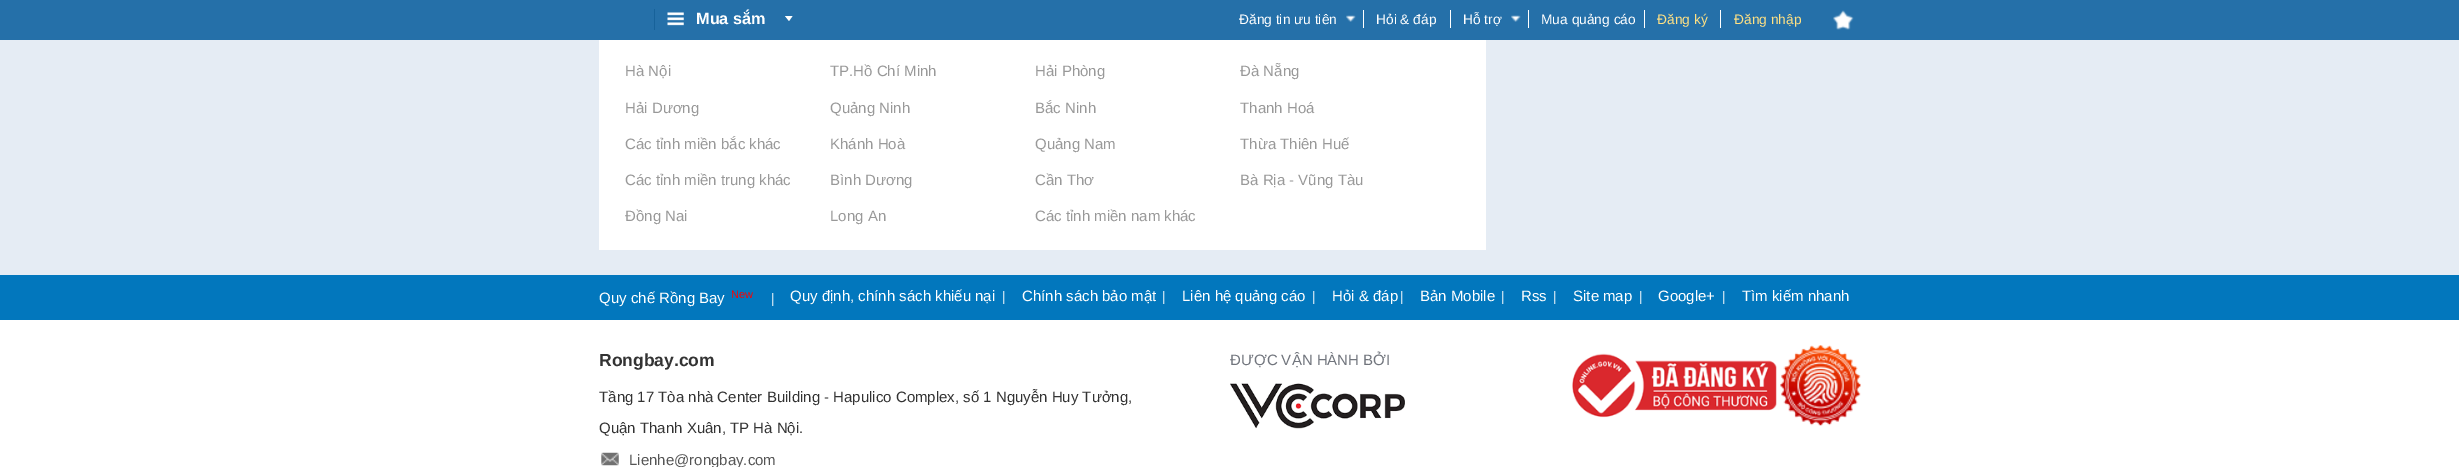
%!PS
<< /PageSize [2459 467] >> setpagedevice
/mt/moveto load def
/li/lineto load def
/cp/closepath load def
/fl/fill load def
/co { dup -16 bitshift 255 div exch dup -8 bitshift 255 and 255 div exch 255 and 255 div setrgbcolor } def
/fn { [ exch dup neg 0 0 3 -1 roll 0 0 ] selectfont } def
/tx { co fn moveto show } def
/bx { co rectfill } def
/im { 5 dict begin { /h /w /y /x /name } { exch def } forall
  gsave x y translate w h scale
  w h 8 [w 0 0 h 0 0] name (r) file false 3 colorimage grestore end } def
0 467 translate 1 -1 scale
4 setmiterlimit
0 0 2459 467 16#E5ECF4 bx
0 0 2459 40 16#2570A9 bx
654 9 1 21 16#17629A bx
(media/1.raw) 667 12 17 14 im
16#FFFFFF co
785 16 mt 792.5 16 li 789 21 li cp fl
(media/2.raw) 1346 15 10 7 im
1363 10 1 18 16#FFFFFF bx
1450 10 1 18 16#FFFFFF bx
(media/2.raw) 1511 15 10 7 im
1528 10 1 18 16#FFFFFF bx
1644 10 1 18 16#FFFFFF bx
1720 10 1 18 16#FFFFFF bx
(media/3.raw) 1833 10 21 20 im
599 40 887 210 16#FFFFFF bx
0 275 2459 45 16#0277BD bx
0 320 2459 147 16#FFFFFF bx
(media/4.raw) 601 452 18 14 im
(media/5.raw) 1230 383 175 46 im
(media/6.raw) 1572 353 205 65 im
(media/7.raw) 1780 345 81 81 im
(Mua sắm) 696 24 /LiberationSans-Bold 16.25 16#FFFFFF tx
(Đăng tin ưu tiên) 1239 24 /LiberationSans-Regular 13.75 16#FFFFFF tx
(Hỏi & đáp) 1376 24 /LiberationSans-Regular 13.75 16#FFFFFF tx
(Hỗ trợ) 1463 24 /LiberationSans-Regular 13.75 16#FFFFFF tx
(Mua quảng cáo) 1541 24 /LiberationSans-Regular 13.75 16#FFFFFF tx
(Đăng ký) 1657 24 /LiberationSans-Regular 13.75 16#FFE184 tx
(Đăng nhập) 1734 24 /LiberationSans-Regular 13.75 16#FFE184 tx
(Hà Nội) 625 76 /LiberationSans-Regular 15 16#999999 tx
(TP.Hồ Chí Minh) 830 76 /LiberationSans-Regular 15 16#999999 tx
(Hải Phòng) 1035 76 /LiberationSans-Regular 15 16#999999 tx
(Đà Nẵng) 1240 76 /LiberationSans-Regular 15 16#999999 tx
(Hải Dương) 625 113 /LiberationSans-Regular 15 16#999999 tx
(Quảng Ninh) 830 113 /LiberationSans-Regular 15 16#999999 tx
(Bắc Ninh) 1035 113 /LiberationSans-Regular 15 16#999999 tx
(Thanh Hoá) 1240 113 /LiberationSans-Regular 15 16#999999 tx
(Các tỉnh miền bắc khác) 625 149 /LiberationSans-Regular 15 16#999999 tx
(Khánh Hoà) 830 149 /LiberationSans-Regular 15 16#999999 tx
(Quảng Nam) 1035 149 /LiberationSans-Regular 15 16#999999 tx
(Thừa Thiên Huế) 1240 149 /LiberationSans-Regular 15 16#999999 tx
(Các tỉnh miền trung khác) 625 185 /LiberationSans-Regular 15 16#999999 tx
(Bình Dương) 830 185 /LiberationSans-Regular 15 16#999999 tx
(Cần Thơ) 1035 185 /LiberationSans-Regular 15 16#999999 tx
(Bà Rịa - Vũng Tàu) 1240 185 /LiberationSans-Regular 15 16#999999 tx
(Đồng Nai) 625 221 /LiberationSans-Regular 15 16#999999 tx
(Long An) 830 221 /LiberationSans-Regular 15 16#999999 tx
(Các tỉnh miền nam khác) 1035 221 /LiberationSans-Regular 15 16#999999 tx
(Quy chế Rồng Bay) 599 303 /LiberationSans-Regular 15 16#FFFFFF tx
(New) 731 298 /LiberationSans-Regular 11 16#FF0000 tx
(|) 771 303 /LiberationSans-Regular 13.75 16#FFFFFF tx
(Quy định, chính sách khiếu nại) 790 301 /LiberationSans-Regular 15 16#FFFFFF tx
(|) 1002 301 /LiberationSans-Regular 13.75 16#FFFFFF tx
(Chính sách bảo mật) 1022 301 /LiberationSans-Regular 15 16#FFFFFF tx
(|) 1162 301 /LiberationSans-Regular 13.75 16#FFFFFF tx
(Liên hệ quảng cáo) 1182 301 /LiberationSans-Regular 15 16#FFFFFF tx
(|) 1312 301 /LiberationSans-Regular 13.75 16#FFFFFF tx
(Hỏi & đáp) 1332 301 /LiberationSans-Regular 15 16#FFFFFF tx
(|) 1400 301 /LiberationSans-Regular 13.75 16#FFFFFF tx
(Bản Mobile) 1420 301 /LiberationSans-Regular 15 16#FFFFFF tx
(|) 1501 301 /LiberationSans-Regular 13.75 16#FFFFFF tx
(Rss) 1521 301 /LiberationSans-Regular 15 16#FFFFFF tx
(|) 1553 301 /LiberationSans-Regular 13.75 16#FFFFFF tx
(Site map) 1573 301 /LiberationSans-Regular 15 16#FFFFFF tx
(|) 1639 301 /LiberationSans-Regular 13.75 16#FFFFFF tx
(Google+) 1658 301 /LiberationSans-Regular 15 16#FFFFFF tx
(|) 1722 301 /LiberationSans-Regular 13.75 16#FFFFFF tx
(Tìm kiếm nhanh) 1742 301 /LiberationSans-Regular 15 16#FFFFFF tx
(Rongbay.com) 599 366 /LiberationSans-Bold 17.5 16#333333 tx
(Tầng 17 Tòa nhà Center Building - Hapulico Complex, số 1 Nguyễn Huy Tưởng,) 599 402 /LiberationSans-Regular 15 16#333333 tx
(Quận Thanh Xuân, TP Hà Nội.) 599 433 /LiberationSans-Regular 15 16#333333 tx
(Lienhe@rongbay.com) 629 465 /LiberationSans-Regular 15 16#555555 tx
(ĐƯỢC VẬN HÀNH BỞI) 1230 365 /LiberationSans-Regular 15 16#71757D tx
showpage
